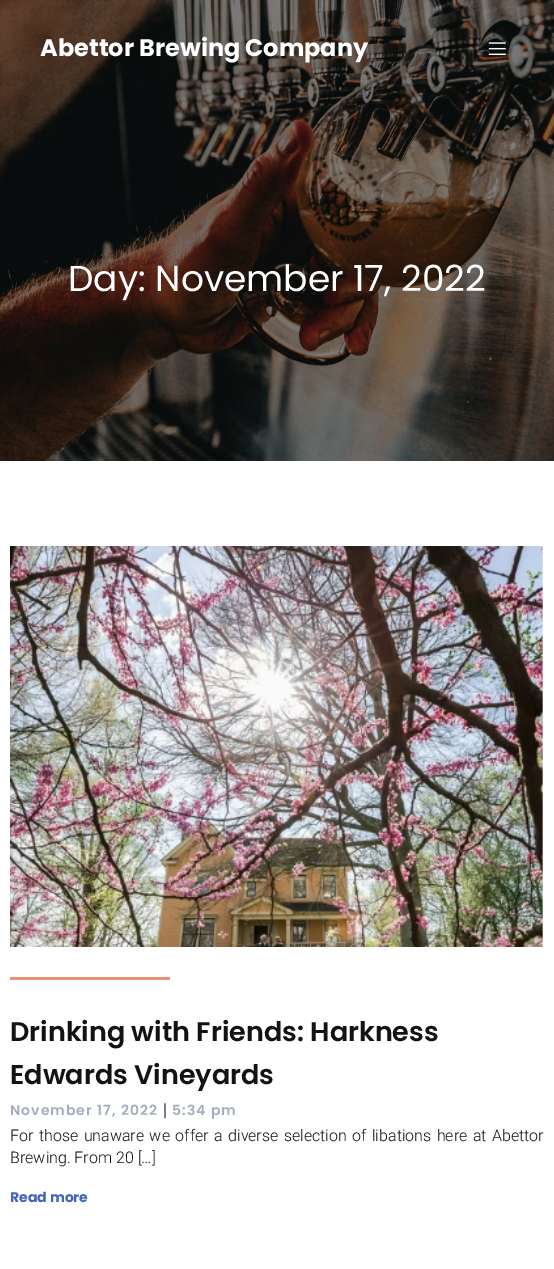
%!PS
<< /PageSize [554 1269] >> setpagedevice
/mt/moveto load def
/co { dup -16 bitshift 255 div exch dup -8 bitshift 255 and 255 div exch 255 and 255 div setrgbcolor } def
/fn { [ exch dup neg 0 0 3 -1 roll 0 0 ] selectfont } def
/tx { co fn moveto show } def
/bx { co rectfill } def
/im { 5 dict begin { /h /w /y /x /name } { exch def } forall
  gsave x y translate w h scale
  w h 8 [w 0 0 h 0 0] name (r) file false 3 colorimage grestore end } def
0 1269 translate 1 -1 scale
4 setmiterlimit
0 0 554 1269 16#FFFFFF bx
(media/2.raw) 0 0 554 461 im
(media/1.raw) 488 42 18 13 im
(media/3.raw) 10 546 534 401 im
10 977 160 3 16#EA9374 bx
(Abettor Brewing Company) 40 56 /Poppins-Bold 24 16#FFFFFF tx
(Day: November 17, 2022) 68 291 /Poppins-Regular 36 16#FFFFFF tx
(Drinking with Friends: Harkness) 10 1041 /Poppins-SemiBold 27 16#121315 tx
(Edwards Vineyards) 10 1084 /Poppins-SemiBold 27 16#121315 tx
/Poppins-SemiBold 14 fn
16#A3ACBE co
10 1115 mt 1 0 (November 17, 2022) ashow
(|) 163 1116 /Roboto-Light 18 16#0A0E14 tx
/Poppins-SemiBold 14 fn
16#A3ACBE co
172 1115 mt 1 0 (5:34 pm) ashow
/Roboto-Light 16 fn
16#0A0E14 co
10 1141 mt 1.6 0 32 (For those unaware we offer a diverse selection of libations here at Abettor) widthshow
(Brewing. From 20 […]) 10 1163 /Roboto-Light 16 16#0A0E14 tx
(Read more) 10 1202 /Poppins-Bold 14 16#4263BE tx
showpage
